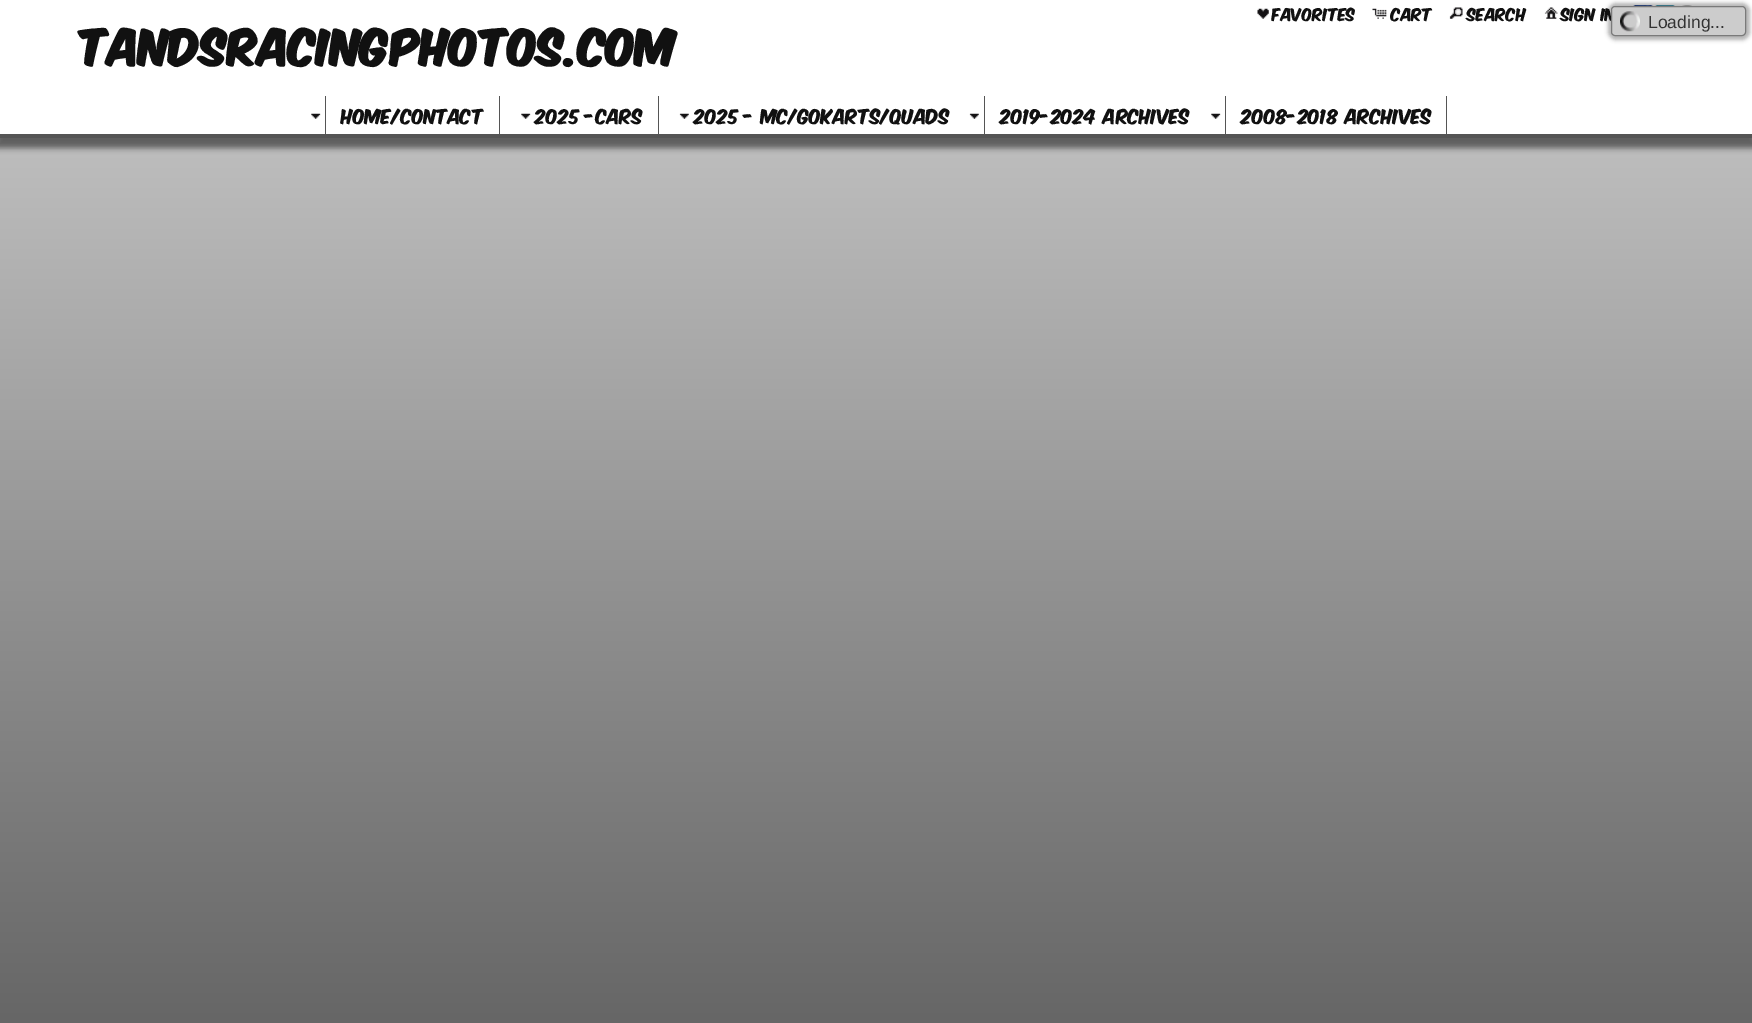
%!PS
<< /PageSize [1752 1023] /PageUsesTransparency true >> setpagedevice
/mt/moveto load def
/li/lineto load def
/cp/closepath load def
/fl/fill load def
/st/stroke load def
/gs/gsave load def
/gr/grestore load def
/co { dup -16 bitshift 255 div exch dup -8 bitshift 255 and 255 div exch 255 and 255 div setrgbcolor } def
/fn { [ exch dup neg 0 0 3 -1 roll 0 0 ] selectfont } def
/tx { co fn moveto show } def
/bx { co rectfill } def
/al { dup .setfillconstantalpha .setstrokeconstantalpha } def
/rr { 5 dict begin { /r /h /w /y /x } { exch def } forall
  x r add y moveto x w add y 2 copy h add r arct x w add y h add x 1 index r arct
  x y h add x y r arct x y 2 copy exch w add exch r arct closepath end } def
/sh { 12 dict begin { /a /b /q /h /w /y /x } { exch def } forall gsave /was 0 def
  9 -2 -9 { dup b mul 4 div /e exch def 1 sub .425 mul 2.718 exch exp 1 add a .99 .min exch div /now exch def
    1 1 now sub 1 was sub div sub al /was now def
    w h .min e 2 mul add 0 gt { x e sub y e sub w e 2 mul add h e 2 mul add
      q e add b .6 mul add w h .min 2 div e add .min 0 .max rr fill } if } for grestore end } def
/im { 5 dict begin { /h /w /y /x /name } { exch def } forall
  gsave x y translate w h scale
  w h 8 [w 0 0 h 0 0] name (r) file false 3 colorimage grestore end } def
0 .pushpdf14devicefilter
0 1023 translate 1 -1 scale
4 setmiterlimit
0 0 1752 1023 16#FFFFFF bx
gs 0 138 mt 1752 138 li 1752 1023 li 0 1023 li cp clip newpath
<< /ShadingType 2 /ColorSpace /DeviceRGB /Coords [876 0 876 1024] /Extend [true true] /Function << /FunctionType 2 /Domain [0 1] /C0 [.8 .8 .8] /C1 [.4 .4 .4] /N 1 >> >> shfill gr
16#000000 co
-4 3 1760 145 0 3 .5 sh
0 0 1752 134 16#FFFFFF bx
0 134 1752 4 16#555555 bx
(media/1.raw) 1633 5 59 1 im
(media/2.raw) 1257 8 12 11 im
(media/3.raw) 1372 8 15 11 im
(media/4.raw) 1449 7 14 12 im
(media/5.raw) 1544 7 14 12 im
1446 96 1 38 16#555555 bx
(media/6.raw) 311 113 10 6 im
325 96 1 38 16#555555 bx
499 96 1 38 16#555555 bx
(media/6.raw) 521 113 10 6 im
658 96 1 38 16#555555 bx
(media/7.raw) 679 113 10 6 im
(media/7.raw) 969 113 10 6 im
984 96 1 38 16#555555 bx
(media/6.raw) 1211 113 10 6 im
1225 96 1 38 16#555555 bx
16#000000 co
1608 3 142 37 8 2 .3 sh
(Favorites) 1272 21 /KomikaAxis-Regular 15 16#111111 tx
(Cart) 1391 21 /KomikaAxis-Regular 15 16#111111 tx
(Search) 1467 21 /KomikaAxis-Regular 15 16#111111 tx
(Sign In) 1561 21 /KomikaAxis-Regular 15 16#111111 tx
/KomikaAxis-Bold 42.5 fn
79 66 mt .5 0 (TANDSRACINGPHOTOS.COM) ashow
(Home/Contact) 341 124 /KomikaAxis-Regular 17.5 16#111111 tx
(2025 -Cars) 535 124 /KomikaAxis-Regular 17.5 16#111111 tx
(2025 - MC/GoKarts/Quads) 694 124 /KomikaAxis-Regular 17.5 16#111111 tx
(2019-2024 Archives) 1000 124 /KomikaAxis-Regular 17.5 16#111111 tx
(2008-2018 Archives) 1241 124 /KomikaAxis-Regular 17.5 16#111111 tx
16#CCCCCC co
1611.5 6.5 134 29 3.5 rr gs fl gr
16#7A7A7A co
st
(media/8.raw) 1620 11 20 21 im
(Loading...) 1648 28 /LiberationSans-Regular 17.5 16#333333 tx
.poppdf14devicefilter showpage
